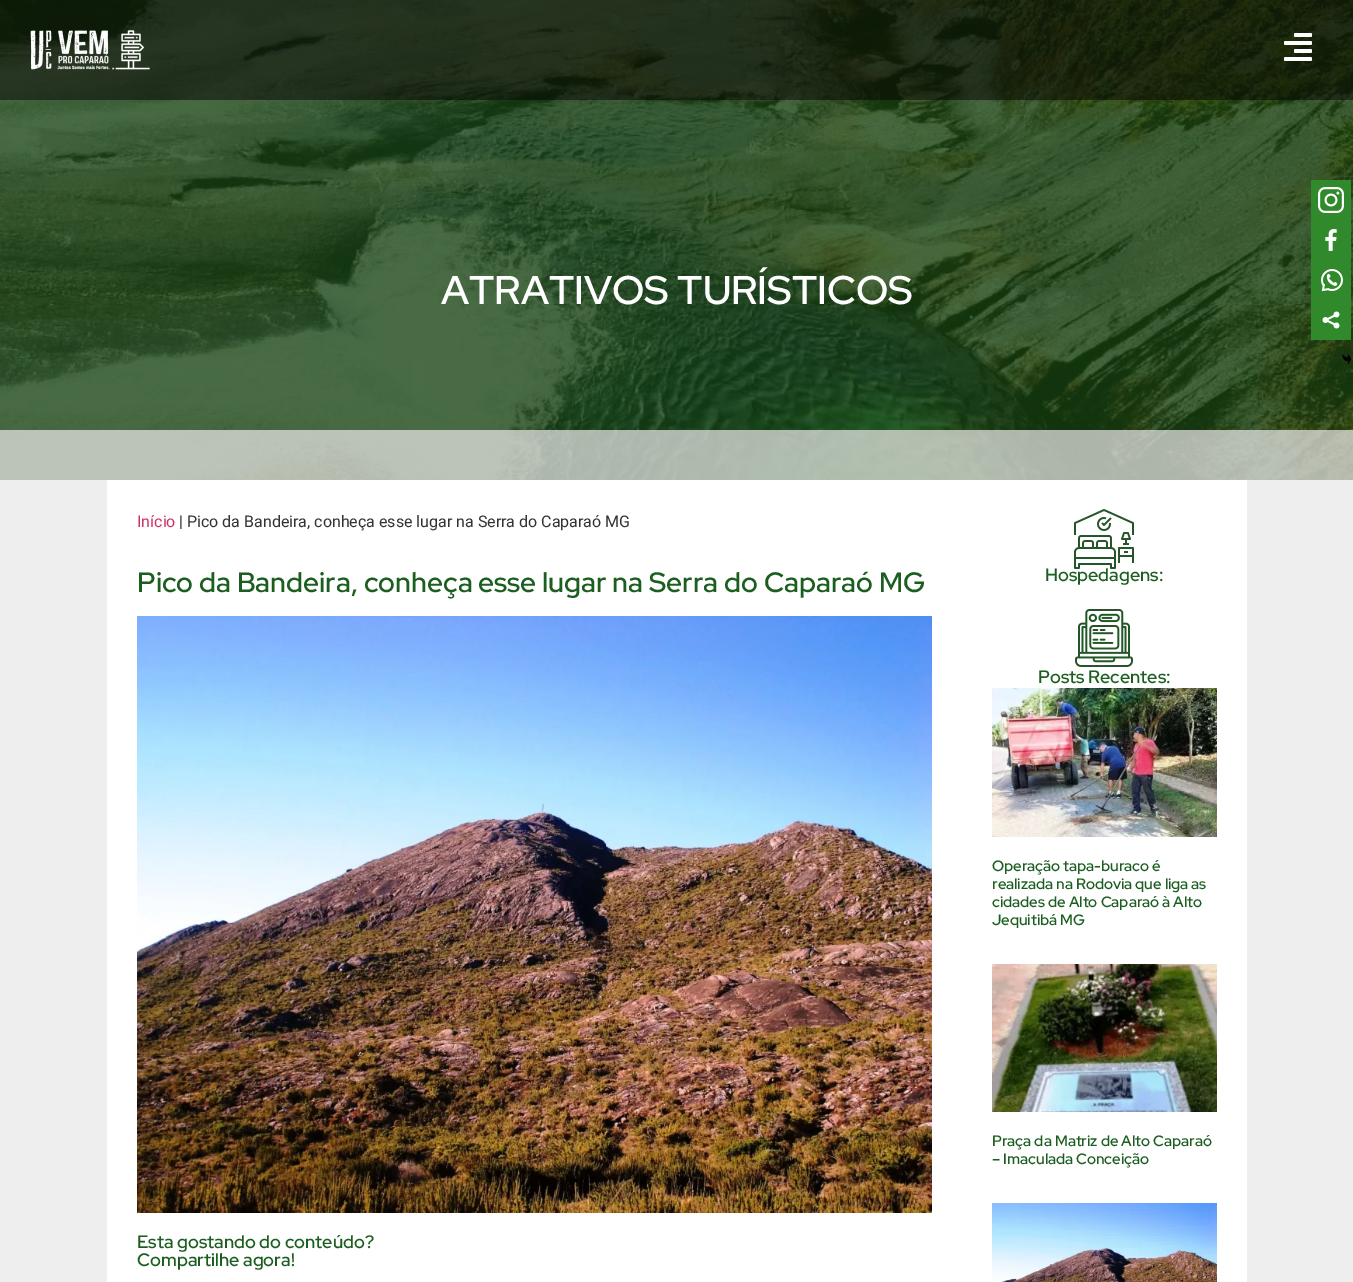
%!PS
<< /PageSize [1353 1282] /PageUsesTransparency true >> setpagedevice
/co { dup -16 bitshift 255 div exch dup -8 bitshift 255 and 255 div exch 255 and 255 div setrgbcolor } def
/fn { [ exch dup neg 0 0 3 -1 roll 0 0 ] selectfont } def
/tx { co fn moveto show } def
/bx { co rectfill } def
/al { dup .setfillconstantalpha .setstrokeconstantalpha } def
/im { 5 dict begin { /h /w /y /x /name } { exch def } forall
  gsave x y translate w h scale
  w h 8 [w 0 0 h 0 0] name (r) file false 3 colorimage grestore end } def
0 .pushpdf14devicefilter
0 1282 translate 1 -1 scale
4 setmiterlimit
0 0 1353 1282 16#FFFFFF bx
(media/3.raw) 0 0 1353 480 im
0.5 al
0 0 1353 100 16#060000 bx
1 al
(media/1.raw) 30 30 120 40 im
(media/2.raw) 1284 33 28 28 im
0.72 al
0 430 1353 852 16#E9E7E7 bx
1 al
107 480 1140 802 16#FFFFFF bx
1311 180 40 160 16#308A2B bx
(media/4.raw) 1318 187 26 26 im
(media/5.raw) 1325 229 12 22 im
(media/6.raw) 1321 269 22 23 im
(media/7.raw) 1322 311 18 18 im
(media/8.raw) 1342 353 10 12 im
(media/9.raw) 137 616 795 597 im
(media/10.raw) 1074 509 60 60 im
(media/11.raw) 1075 609 58 58 im
(media/12.raw) 992 688 225 149 im
(media/13.raw) 992 964 225 148 im
(media/14.raw) 992 1203 225 79 im
(ATRATIVOS TURÍSTICOS) 441 304 /RedHatDisplay-SemiBold 40 16#FFFFFF tx
(Início) 137 527 /Roboto-Regular 16 16#CC3366 tx
(| Pico da Bandeira, conheça esse lugar na Serra do Caparaó MG) 179 527 /Roboto-Regular 16 16#333333 tx
(Pico da Bandeira, conheça esse lugar na Serra do Caparaó MG) 137 592 /RedHatDisplay-SemiBold 28 16#1B5E20 tx
(Esta gostando do conteúdo?) 137 1248 /RedHatDisplay-SemiBold 18 16#1B5E20 tx
(Compartilhe agora!) 137 1266 /RedHatDisplay-SemiBold 18 16#1B5E20 tx
(Hospedagens:) 1045 581 /RedHatDisplay-SemiBold 18 16#1B5E20 tx
(Posts Recentes:) 1038 683 /RedHatDisplay-SemiBold 18 16#1B5E20 tx
(Operação tapa-buraco é) 992 871 /RedHatDisplay-SemiBold 15 16#1B5E20 tx
(realizada na Rodovia que liga as) 992 889 /RedHatDisplay-SemiBold 15 16#1B5E20 tx
(cidades de Alto Caparaó à Alto) 992 907 /RedHatDisplay-SemiBold 15 16#1B5E20 tx
(Jequitibá MG) 992 925 /RedHatDisplay-SemiBold 15 16#1B5E20 tx
(Praça da Matriz de Alto Caparaó) 992 1146 /RedHatDisplay-SemiBold 15 16#1B5E20 tx
(– Imaculada Conceição) 992 1164 /RedHatDisplay-SemiBold 15 16#1B5E20 tx
.poppdf14devicefilter showpage
